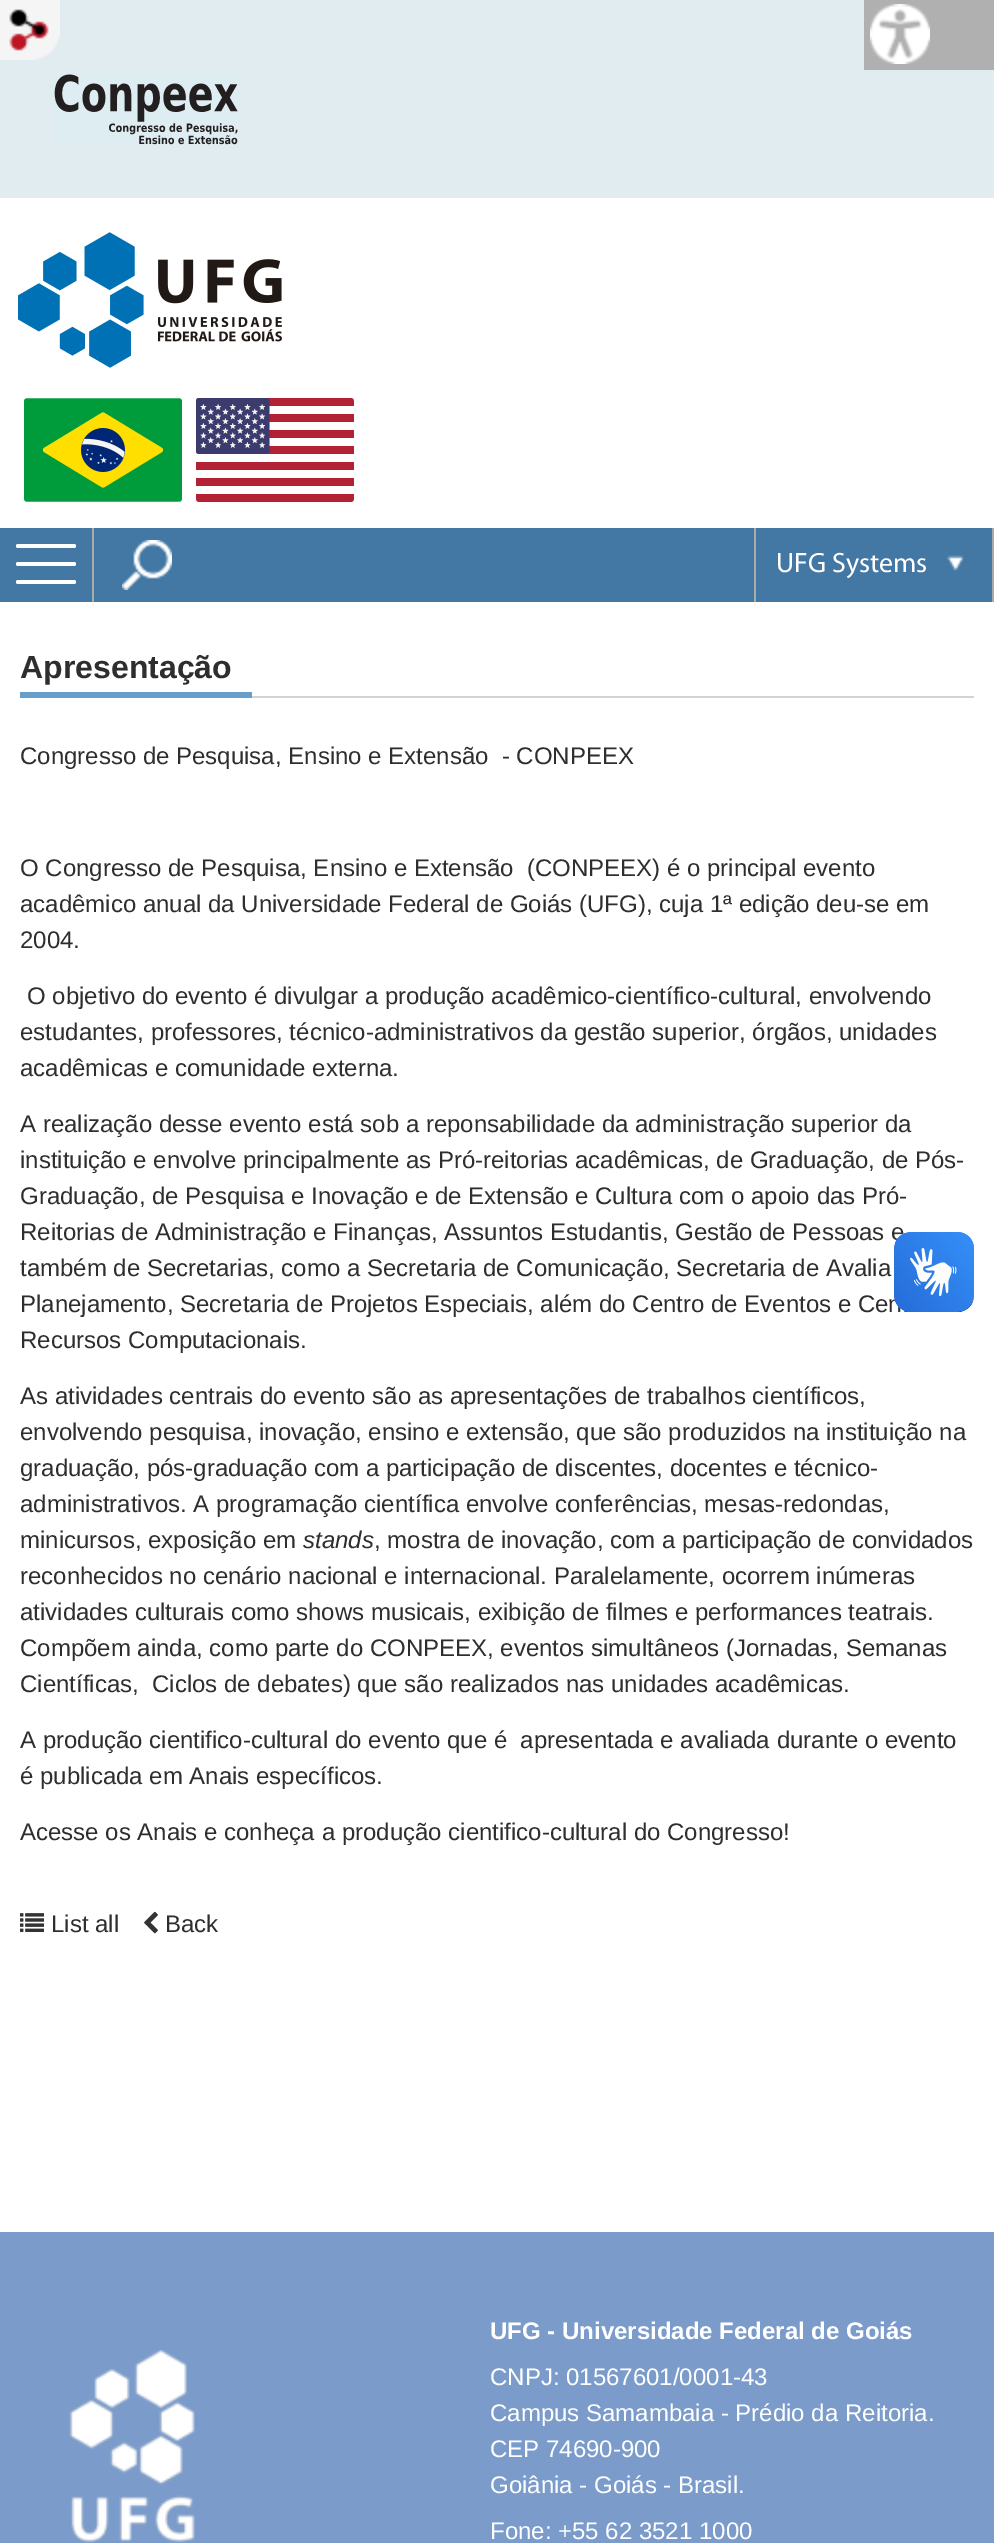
%!PS
<< /PageSize [994 2543] >> setpagedevice
/fl/fill load def
/co { dup -16 bitshift 255 div exch dup -8 bitshift 255 and 255 div exch 255 and 255 div setrgbcolor } def
/fn { [ exch dup neg 0 0 3 -1 roll 0 0 ] selectfont } def
/tx { co fn moveto show } def
/bx { co rectfill } def
/rr { 5 dict begin { /r /h /w /y /x } { exch def } forall
  x r add y moveto x w add y 2 copy h add r arct x w add y h add x 1 index r arct
  x y h add x y r arct x y 2 copy exch w add exch r arct closepath end } def
/im { 5 dict begin { /h /w /y /x /name } { exch def } forall
  gsave x y translate w h scale
  w h 8 [w 0 0 h 0 0] name (r) file false 3 colorimage grestore end } def
0 2543 translate 1 -1 scale
4 setmiterlimit
0 0 994 2543 16#FFFFFF bx
0 0 994 198 16#E1ECF1 bx
(media/1.raw) 0 0 60 60 im
(media/2.raw) 54 74 184 71 im
(media/3.raw) 18 232 264 136 im
(media/4.raw) 24 398 158 104 im
(media/5.raw) 196 398 158 104 im
864 0 130 70 16#B0B0B0 bx
(media/6.raw) 870 4 60 60 im
0 528 992 74 16#4478A4 bx
92 528 2 74 16#AAAAAA bx
16#FFFFFF co
16 562 60 4 2 rr fl
16 544 60 4 2 rr fl
16 580 60 4 2 rr fl
(media/7.raw) 122 540 50 50 im
(media/8.raw) 947 555 17 16 im
992 528 2 74 16#AAAAAA bx
754 528 2 74 16#AAAAAA bx
252 696 722 2 16#D3D3D3 bx
20 692 232 6 16#689ECA bx
(media/9.raw) 20 1913 24 19 im
(media/10.raw) 144 1911 14 23 im
0 2232 994 311 16#7B9CCB bx
(media/13.raw) 69 2349 126 194 im
(UFG Systems) 776 572 /Myriad-Regular 28 16#FFFFFF tx
(Apresentação) 20 678 /LiberationSans-Bold 32 16#2E2E2E tx
(Congresso de Pesquisa, Ensino e Extensão  - CONPEEX) 20 764 /LiberationSans-Regular 24 16#2E2E2E tx
(O Congresso de Pesquisa, Ensino e Extensão  \(CONPEEX\) é o principal evento) 20 876 /LiberationSans-Regular 24 16#2E2E2E tx
(acadêmico anual da Universidade Federal de Goiás \(UFG\), cuja 1ª edição deu-se em) 20 912 /LiberationSans-Regular 24 16#2E2E2E tx
(2004.) 20 948 /LiberationSans-Regular 24 16#2E2E2E tx
(O objetivo do evento é divulgar a produção acadêmico-científico-cultural, envolvendo) 27 1004 /LiberationSans-Regular 24 16#2E2E2E tx
(estudantes, professores, técnico-administrativos da gestão superior, órgãos, unidades) 20 1040 /LiberationSans-Regular 24 16#2E2E2E tx
(acadêmicas e comunidade externa.) 20 1076 /LiberationSans-Regular 24 16#2E2E2E tx
(A realização desse evento está sob a reponsabilidade da administração superior da) 20 1132 /LiberationSans-Regular 24 16#2E2E2E tx
(instituição e envolve principalmente as Pró-reitorias acadêmicas, de Graduação, de Pós-) 20 1168 /LiberationSans-Regular 24 16#2E2E2E tx
(Graduação, de Pesquisa e Inovação e de Extensão e Cultura com o apoio das Pró-) 20 1204 /LiberationSans-Regular 24 16#2E2E2E tx
(Reitorias de Administração e Finanças, Assuntos Estudantis, Gestão de Pessoas e) 20 1240 /LiberationSans-Regular 24 16#2E2E2E tx
(também de Secretarias, como a Secretaria de Comunicação, Secretaria de Avalia) 20 1276 /LiberationSans-Regular 24 16#2E2E2E tx
(Planejamento, Secretaria de Projetos Especiais, além do Centro de Eventos e Cen) 20 1312 /LiberationSans-Regular 24 16#2E2E2E tx
(Recursos Computacionais.) 20 1348 /LiberationSans-Regular 24 16#2E2E2E tx
(As atividades centrais do evento são as apresentações de trabalhos científicos,) 20 1404 /LiberationSans-Regular 24 16#2E2E2E tx
(envolvendo pesquisa, inovação, ensino e extensão, que são produzidos na instituição na) 20 1440 /LiberationSans-Regular 24 16#2E2E2E tx
(graduação, pós-graduação com a participação de discentes, docentes e técnico-) 20 1476 /LiberationSans-Regular 24 16#2E2E2E tx
(administrativos. A programação científica envolve conferências, mesas-redondas,) 20 1512 /LiberationSans-Regular 24 16#2E2E2E tx
(minicursos, exposição em) 20 1548 /LiberationSans-Regular 24 16#2E2E2E tx
(stands) 303 1548 /LiberationSans-Italic 24 16#2E2E2E tx
(, mostra de inovação, com a participação de convidados) 374 1548 /LiberationSans-Regular 24 16#2E2E2E tx
(reconhecidos no cenário nacional e internacional. Paralelamente, ocorrem inúmeras) 20 1584 /LiberationSans-Regular 24 16#2E2E2E tx
(atividades culturais como shows musicais, exibição de filmes e performances teatrais.) 20 1620 /LiberationSans-Regular 24 16#2E2E2E tx
(Compõem ainda, como parte do CONPEEX, eventos simultâneos \(Jornadas, Semanas) 20 1656 /LiberationSans-Regular 24 16#2E2E2E tx
(Científicas,  Ciclos de debates\) que são realizados nas unidades acadêmicas.) 20 1692 /LiberationSans-Regular 24 16#2E2E2E tx
(A produção cientifico-cultural do evento que é  apresentada e avaliada durante o evento) 20 1748 /LiberationSans-Regular 24 16#2E2E2E tx
(é publicada em Anais específicos.) 20 1784 /LiberationSans-Regular 24 16#2E2E2E tx
(Acesse os Anais e conheça a produção cientifico-cultural do Congresso!) 20 1840 /LiberationSans-Regular 24 16#2E2E2E tx
(List all) 51 1932 /LiberationSans-Regular 24 16#2E2E2E tx
(Back) 165 1932 /LiberationSans-Regular 24 16#2E2E2E tx
(media/11.raw) 894 1232 80 80 im
(media/12.raw) 894 1232 80 80 im
(UFG - Universidade Federal de Goiás) 490 2339 /LiberationSans-Bold 24 16#FFFFFF tx
(CNPJ: 01567601/0001-43) 490 2385 /LiberationSans-Regular 24 16#FFFFFF tx
(Campus Samambaia - Prédio da Reitoria.) 490 2421 /LiberationSans-Regular 24 16#FFFFFF tx
(CEP 74690-900) 490 2457 /LiberationSans-Regular 24 16#FFFFFF tx
(Goiânia - Goiás - Brasil.) 490 2493 /LiberationSans-Regular 24 16#FFFFFF tx
(Fone: +55 62 3521 1000) 490 2539 /LiberationSans-Regular 24 16#FFFFFF tx
showpage
